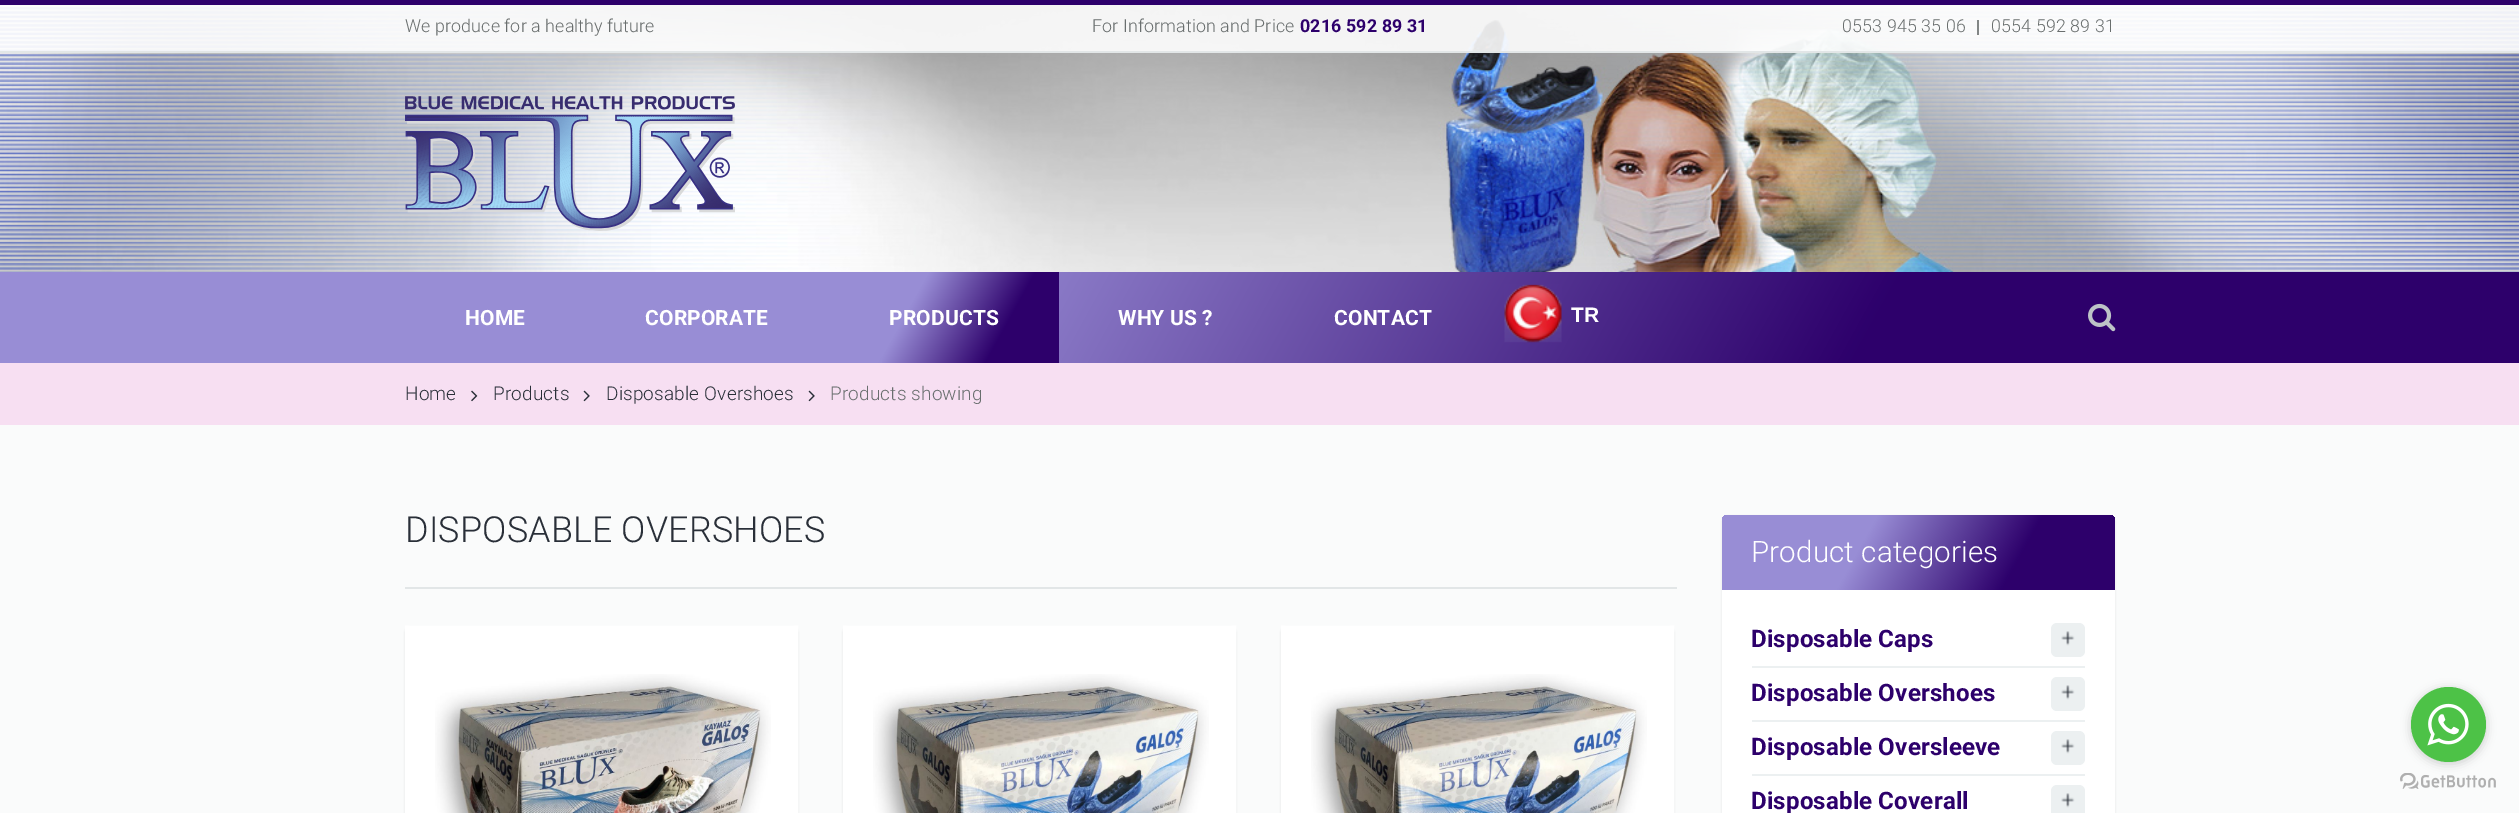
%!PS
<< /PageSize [2519 813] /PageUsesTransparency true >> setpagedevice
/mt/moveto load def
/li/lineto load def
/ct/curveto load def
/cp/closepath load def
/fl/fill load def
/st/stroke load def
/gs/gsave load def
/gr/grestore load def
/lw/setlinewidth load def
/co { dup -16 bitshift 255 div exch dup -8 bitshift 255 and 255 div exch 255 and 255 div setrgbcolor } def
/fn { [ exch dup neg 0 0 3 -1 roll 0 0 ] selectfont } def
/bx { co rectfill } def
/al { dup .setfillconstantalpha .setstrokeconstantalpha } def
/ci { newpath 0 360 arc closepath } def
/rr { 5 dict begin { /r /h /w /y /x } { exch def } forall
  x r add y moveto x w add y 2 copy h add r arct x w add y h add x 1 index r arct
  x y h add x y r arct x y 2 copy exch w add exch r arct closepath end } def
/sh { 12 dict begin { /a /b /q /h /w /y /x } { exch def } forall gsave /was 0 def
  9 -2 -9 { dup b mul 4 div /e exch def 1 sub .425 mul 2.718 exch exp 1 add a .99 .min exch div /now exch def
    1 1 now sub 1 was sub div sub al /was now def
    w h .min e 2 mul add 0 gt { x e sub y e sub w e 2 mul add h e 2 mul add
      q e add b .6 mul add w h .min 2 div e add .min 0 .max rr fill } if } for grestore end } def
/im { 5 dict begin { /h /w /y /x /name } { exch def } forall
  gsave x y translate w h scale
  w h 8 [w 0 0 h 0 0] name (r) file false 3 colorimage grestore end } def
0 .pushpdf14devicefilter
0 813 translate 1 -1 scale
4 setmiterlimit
0 0 2519 813 16#FAFBFB bx
(media/1.raw) 0 5 2519 267 im
0 0 2519 5 16#2D006B bx
0.89 al
0 5 2519 46 16#FFFFFF bx
1 al
0 51 2519 2 16#E2E6E7 bx
1977 20 2 15 16#828686 bx
(media/2.raw) 405 96 330 135 im
gs 0 272 mt 2519 272 li 2519 363 li 0 363 li cp clip newpath
<< /ShadingType 2 /ColorSpace /DeviceRGB /Coords [2243 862 277 -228] /Extend [true true] /Function << /FunctionType 3 /Domain [0 1] /Functions [<< /FunctionType 2 /Domain [0 1] /C0 [.176 0 .42] /C1 [.176 0 .42] /N 1 >> << /FunctionType 2 /Domain [0 1] /C0 [.176 0 .42] /C1 [.596 .553 .835] /N 1 >> << /FunctionType 2 /Domain [0 1] /C0 [.596 .553 .835] /C1 [.596 .553 .835] /N 1 >>] /Bounds [.26 .64] /Encode [0 1 0 1 0 1] >> >> shfill gr
gs 882 272 mt 1059 272 li 1059 363 li 882 363 li cp clip newpath
<< /ShadingType 2 /ColorSpace /DeviceRGB /Coords [1051 377 836 258] /Extend [true true] /Function << /FunctionType 3 /Domain [0 1] /Functions [<< /FunctionType 2 /Domain [0 1] /C0 [.176 0 .42] /C1 [.176 0 .42] /N 1 >> << /FunctionType 2 /Domain [0 1] /C0 [.176 0 .42] /C1 [.596 .553 .835] /N 1 >> << /FunctionType 2 /Domain [0 1] /C0 [.596 .553 .835] /C1 [.596 .553 .835] /N 1 >>] /Bounds [.26 .64] /Encode [0 1 0 1 0 1] >> >> shfill gr
(media/3.raw) 1504 284 58 59 im
(media/4.raw) 2088 303 28 29 im
0 363 2519 62 16#F7DFF2 bx
(media/5.raw) 471 390 7 12 im
(media/6.raw) 583 390 7 12 im
(media/6.raw) 808 390 7 12 im
405 587 1272 2 16#E2E6E7 bx
16#000000 co
405 627 393 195 6 1 .1 sh
420 640 363 173 16#FFFFFF bx
15 lw
412.5 633 mt 790.5 633 li 790.5 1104 li 412.5 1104 li cp st
(media/7.raw) 435 674 336 139 im
16#000000 co
843 627 393 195 6 1 .1 sh
858 640 363 173 16#FFFFFF bx
850.5 633 mt 1228.5 633 li 1228.5 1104 li 850.5 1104 li cp st
(media/8.raw) 873 674 336 139 im
16#000000 co
1281 627 393 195 6 1 .1 sh
1296 640 363 173 16#FFFFFF bx
1288.5 633 mt 1666.5 633 li 1666.5 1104 li 1288.5 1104 li cp st
(media/8.raw) 1311 674 336 139 im
16#000000 co
1722 516 393 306 6 1 .1 sh
gs 1728 515 mt 2109 515 li 2112.5 515 2115 517.5 2115 521 ct 2115 590 li 1722 590 li 1722 521 li 1722 517.5 1724.5 515 1728 515 ct cp clip newpath
<< /ShadingType 2 /ColorSpace /DeviceRGB /Coords [2085 644 1752 460] /Extend [true true] /Function << /FunctionType 3 /Domain [0 1] /Functions [<< /FunctionType 2 /Domain [0 1] /C0 [.176 0 .42] /C1 [.176 0 .42] /N 1 >> << /FunctionType 2 /Domain [0 1] /C0 [.176 0 .42] /C1 [.596 .553 .835] /N 1 >> << /FunctionType 2 /Domain [0 1] /C0 [.596 .553 .835] /C1 [.596 .553 .835] /N 1 >>] /Bounds [.26 .64] /Encode [0 1 0 1 0 1] >> >> shfill gr
1722 590 393 223 16#FFFFFF bx
1752 666 333 2 16#ECF0F1 bx
2051 623 34 34 6 rr fl
(media/9.raw) 2061 631 14 15 im
1752 720 333 2 16#ECF0F1 bx
2051 677 34 34 6 rr fl
(media/9.raw) 2061 685 14 15 im
1752 774 333 2 16#ECF0F1 bx
2051 731 34 34 6 rr fl
(media/9.raw) 2061 739 14 15 im
2051 785 34 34 6 rr fl
(media/9.raw) 2061 793 14 15 im
(media/11.raw) 2400 773 96 16 im
16#888888 co
2411 689 75 75 37.5 5 .4 sh
16#4DC247 co
2448.5 724.5 37.5 ci fl
(media/10.raw) 2427 703 42 43 im
/Roboto-Light 17.8 fn
16#696E6E co
405 32 mt .15 0 (We produce for a healthy future) ashow
1092 32 mt .15 0 (For Information and Price) ashow
/Roboto-Bold 17.8 fn
16#2D006B co
1300 32 mt .15 0 (0216 592 89 31) ashow
/Roboto-Light 17.8 fn
16#696E6E co
1842 32 mt .15 0 (0553 945 35 06) ashow
1991 32 mt .15 0 (0554 592 89 31) ashow
/Roboto-Bold 21 fn
16#FFFFFF co
465 325 mt .15 0 (HOME) ashow
645 325 mt .15 0 (CORPORATE) ashow
889 325 mt .15 0 (PRODUCTS) ashow
1118 325 mt .15 0 (WHY US ?) ashow
1334 325 mt .15 0 (CONTACT) ashow
/LiberationSans-Bold 21 fn
1571 322 mt .15 0 (TR) ashow
/Roboto-Light 19 fn
16#292F38 co
405 400 mt .15 0 (Home) ashow
493 400 mt .15 0 (Products) ashow
606 400 mt .15 0 (Disposable Overshoes) ashow
16#696E6E co
830 400 mt .15 0 (Products showing) ashow
/Roboto-Light 35.9 fn
16#292F38 co
405 542 mt .15 0 (DISPOSABLE OVERSHOES) ashow
/Roboto-Light 29.5 fn
16#FFFFFF co
1751 562 mt .15 0 (Product categories) ashow
/Roboto-Bold 24.1 fn
16#2D006B co
1751 647 mt .15 0 (Disposable Caps) ashow
1751 701 mt .15 0 (Disposable Overshoes) ashow
1751 755 mt .15 0 (Disposable Oversleeve) ashow
1751 809 mt .15 0 (Disposable Coverall) ashow
.poppdf14devicefilter showpage
